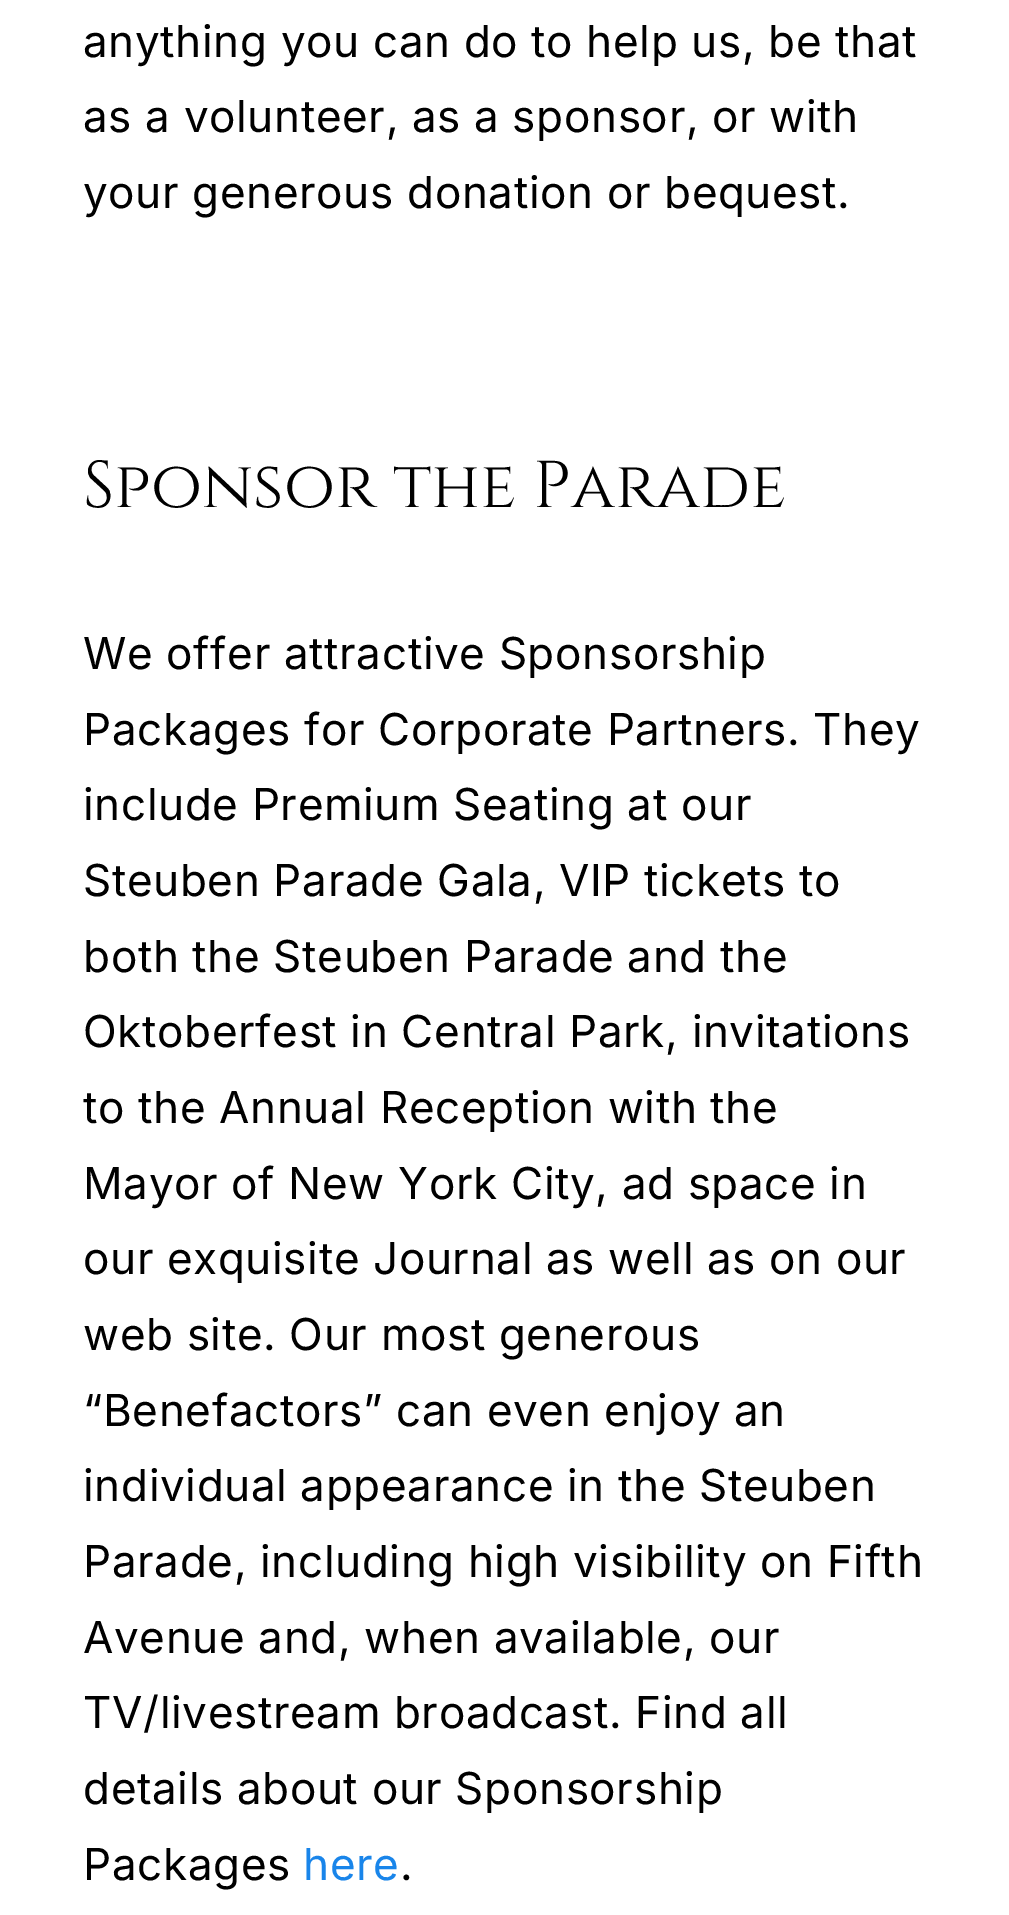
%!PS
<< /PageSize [1009 1915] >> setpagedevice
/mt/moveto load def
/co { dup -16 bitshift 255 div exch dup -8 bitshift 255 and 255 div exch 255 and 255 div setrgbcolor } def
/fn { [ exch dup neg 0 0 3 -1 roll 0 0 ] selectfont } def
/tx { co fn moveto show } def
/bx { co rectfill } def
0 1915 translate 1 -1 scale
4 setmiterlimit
0 0 1009 1915 16#FFFFFF bx
/Inter-Regular 44 fn
16#000000 co
83 57 mt .65 0 (anything you can do to help us, be that) ashow
83 132 mt .65 0 (as a volunteer, as a sponsor, or with) ashow
83 208 mt .65 0 (your generous donation or bequest.) ashow
(Sponsor the Parade) 83 507 /Cinzel-Regular 66 16#000000 tx
/Inter-Regular 44 fn
83 669 mt .65 0 (We offer attractive Sponsorship) ashow
83 745 mt .65 0 (Packages for Corporate Partners. They) ashow
83 820 mt .65 0 (include Premium Seating at our) ashow
83 896 mt .65 0 (Steuben Parade Gala, VIP tickets to) ashow
83 972 mt .65 0 (both the Steuben Parade and the) ashow
83 1047 mt .65 0 (Oktoberfest in Central Park, invitations) ashow
83 1123 mt .65 0 (to the Annual Reception with the) ashow
83 1199 mt .65 0 (Mayor of New York City, ad space in) ashow
83 1274 mt .65 0 (our exquisite Journal as well as on our) ashow
83 1350 mt .65 0 (web site. Our most generous) ashow
83 1426 mt .65 0 (“Benefactors” can even enjoy an) ashow
83 1501 mt .65 0 (individual appearance in the Steuben) ashow
83 1577 mt .65 0 (Parade, including high visibility on Fifth) ashow
83 1653 mt .65 0 (Avenue and, when available, our) ashow
83 1728 mt .65 0 (TV/livestream broadcast. Find all) ashow
83 1804 mt .65 0 (details about our Sponsorship) ashow
83 1880 mt .65 0 (Packages) ashow
16#1985EA co
303 1880 mt .65 0 (here) ashow
16#000000 co
400 1880 mt .65 0 (.) ashow
showpage
